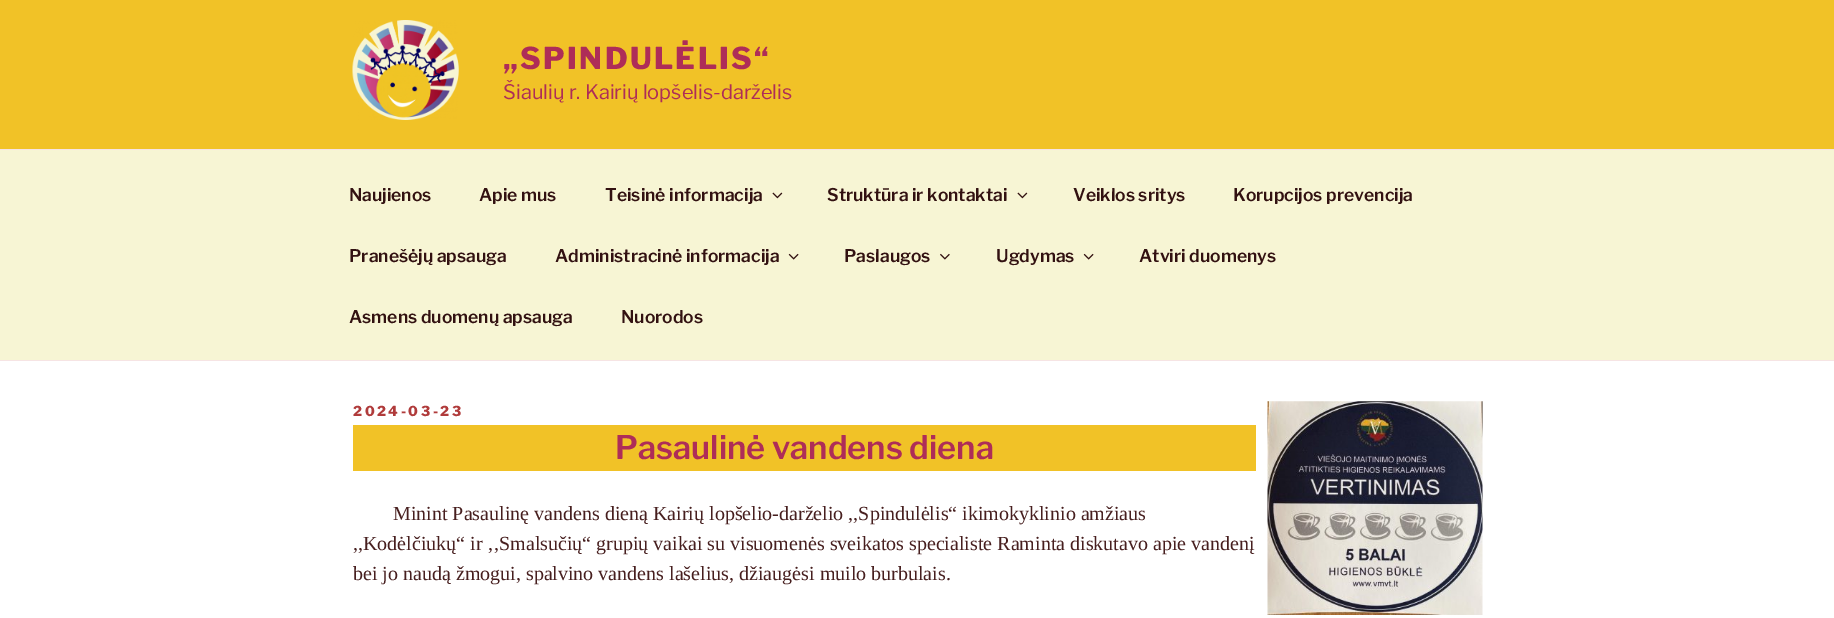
%!PS
<< /PageSize [1834 618] >> setpagedevice
/mt/moveto load def
/co { dup -16 bitshift 255 div exch dup -8 bitshift 255 and 255 div exch 255 and 255 div setrgbcolor } def
/fn { [ exch dup neg 0 0 3 -1 roll 0 0 ] selectfont } def
/tx { co fn moveto show } def
/bx { co rectfill } def
/im { 5 dict begin { /h /w /y /x /name } { exch def } forall
  gsave x y translate w h scale
  w h 8 [w 0 0 h 0 0] name (r) file false 3 colorimage grestore end } def
0 618 translate 1 -1 scale
4 setmiterlimit
0 0 1834 618 16#F1C227 bx
(media/1.raw) 352 20 107 100 im
0 150 1834 210 16#F7F5D4 bx
0 149 1834 1 16#F6E4E4 bx
0 360 1834 1 16#F6E4E4 bx
(media/2.raw) 772 192 11 7 im
(media/2.raw) 1017 192 11 7 im
(media/3.raw) 788 253 11 7 im
(media/4.raw) 940 253 10 7 im
(media/3.raw) 1083 253 11 7 im
0 361 1834 257 16#FFFFFF bx
353 425 903 46 16#F1C227 bx
(media/5.raw) 1267 401 216 214 im
/LibreFranklin-ExtraBold 30 fn
16#AE2D58 co
503 69 mt 2.4 0 („SPINDULĖLIS“) ashow
(Šiaulių r. Kairių lopšelis-darželis) 503 99 /LibreFranklin-Regular 20 16#AE2D58 tx
(Naujienos) 349 201 /LibreFranklin-SemiBold 17.5 16#321111 tx
(Apie mus) 479 201 /LibreFranklin-SemiBold 17.5 16#321111 tx
(Teisinė informacija) 605 201 /LibreFranklin-SemiBold 17.5 16#321111 tx
(Struktūra ir kontaktai) 827 201 /LibreFranklin-SemiBold 17.5 16#321111 tx
(Veiklos sritys) 1073 201 /LibreFranklin-SemiBold 17.5 16#321111 tx
(Korupcijos prevencija) 1233 201 /LibreFranklin-SemiBold 17.5 16#321111 tx
(Pranešėjų apsauga) 349 262 /LibreFranklin-SemiBold 17.5 16#321111 tx
(Administracinė informacija) 555 262 /LibreFranklin-SemiBold 17.5 16#321111 tx
(Paslaugos) 844 262 /LibreFranklin-SemiBold 17.5 16#321111 tx
(Ugdymas) 996 262 /LibreFranklin-SemiBold 17.5 16#321111 tx
(Atviri duomenys) 1139 262 /LibreFranklin-SemiBold 17.5 16#321111 tx
(Asmens duomenų apsauga) 349 323 /LibreFranklin-SemiBold 17.5 16#321111 tx
(Nuorodos) 621 323 /LibreFranklin-SemiBold 17.5 16#321111 tx
/LibreFranklin-ExtraBold 13.75 fn
16#B03B3B co
353 416 mt 2.5 0 (2024-03-23) ashow
(Pasaulinė vandens diena) 615 459 /LibreFranklin-SemiBold 32.5 16#AE2D58 tx
(Minint Pasaulinę vandens dieną Kairių lopšelio-darželio ,,Spindulėlis“ ikimokyklinio amžiaus) 393 520 /LiberationSerif-Regular 20 16#471F1F tx
(,,Kodėlčiukų“ ir ‚,Smalsučių“ grupių vaikai su visuomenės sveikatos specialiste Raminta diskutavo apie vandenį) 353 550 /LiberationSerif-Regular 20 16#471F1F tx
(bei jo naudą žmogui, spalvino vandens lašelius, džiaugėsi muilo burbulais.) 353 580 /LiberationSerif-Regular 20 16#471F1F tx
showpage
